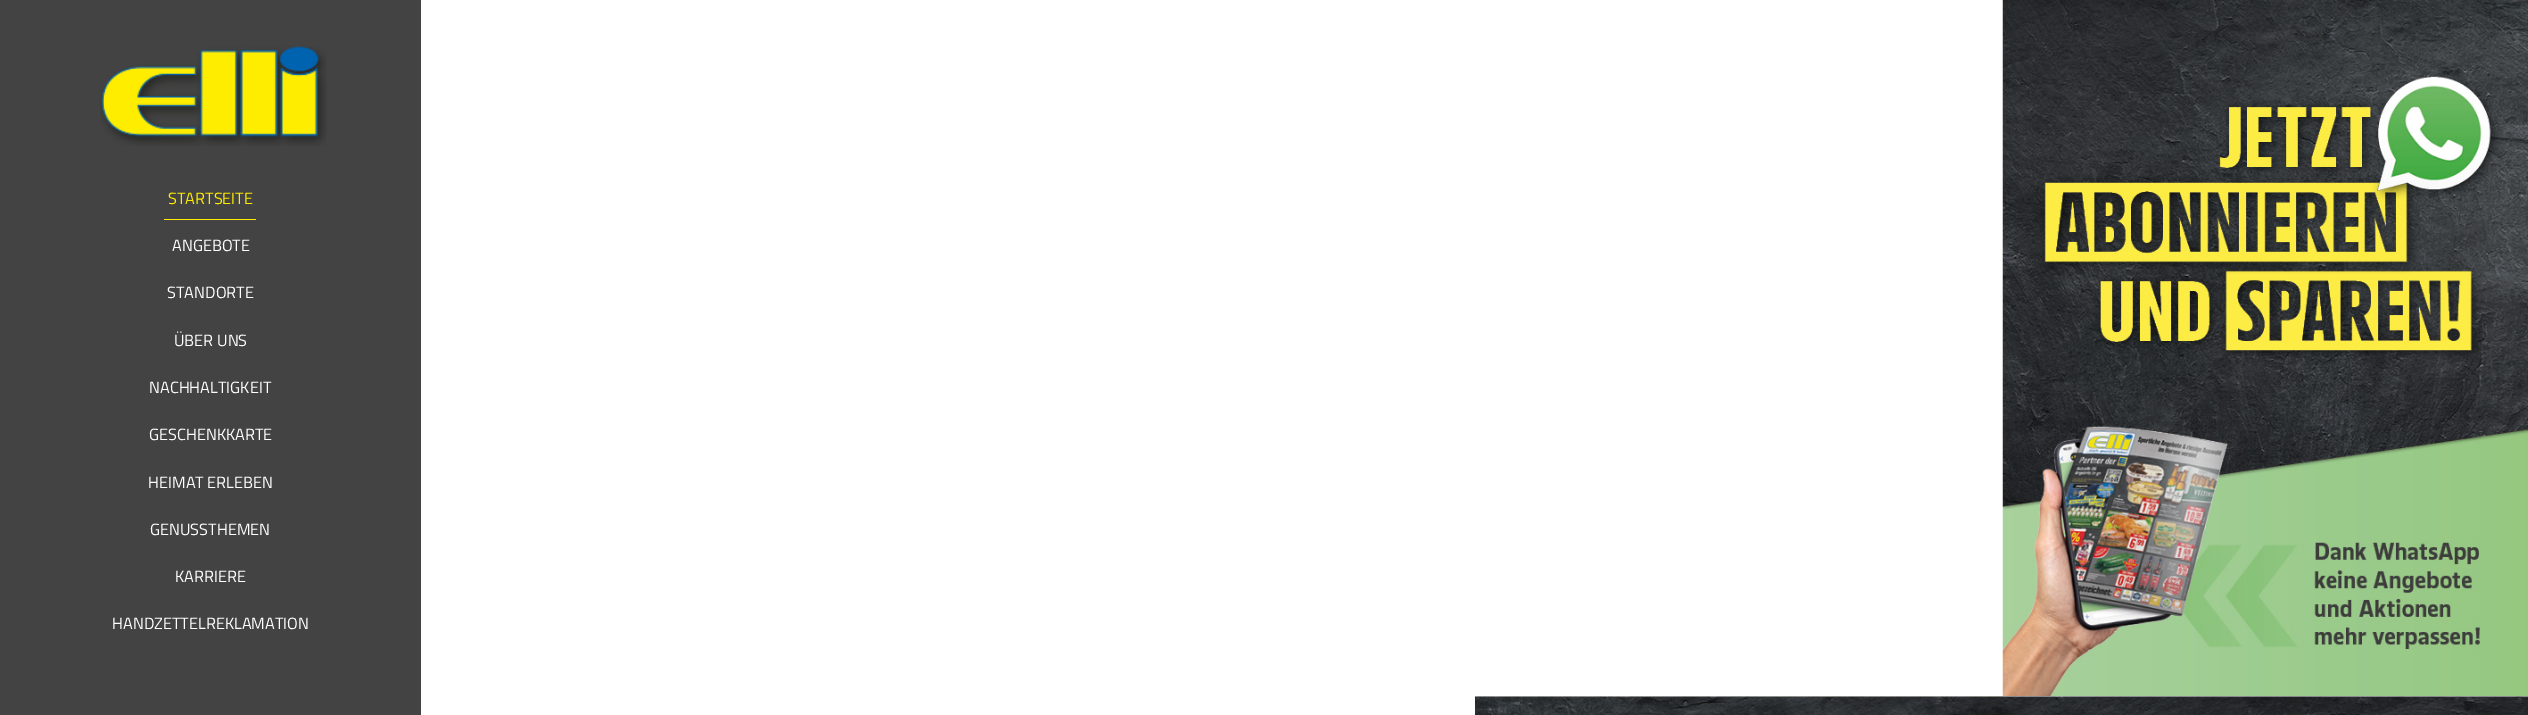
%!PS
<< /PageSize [2528 715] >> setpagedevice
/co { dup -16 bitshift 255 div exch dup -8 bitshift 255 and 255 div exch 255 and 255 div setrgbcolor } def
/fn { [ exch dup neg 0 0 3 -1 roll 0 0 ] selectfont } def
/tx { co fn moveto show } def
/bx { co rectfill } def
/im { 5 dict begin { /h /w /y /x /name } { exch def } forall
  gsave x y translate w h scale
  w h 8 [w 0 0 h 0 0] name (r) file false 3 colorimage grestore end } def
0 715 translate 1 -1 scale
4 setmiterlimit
0 0 2528 715 16#FFFFFF bx
0 0 421 715 16#434343 bx
(media/1.raw) 100 46 227 100 im
164 219 92 1 16#FFEC00 bx
(media/2.raw) 2002 0 526 697 im
(media/3.raw) 1475 696 1053 19 im
(STARTSEITE) 168 204 /TitilliumWeb-Regular 16.25 16#FFEC00 tx
(ANGEBOTE) 172 251 /TitilliumWeb-Regular 16.25 16#FFFFFF tx
(STANDORTE) 167 298 /TitilliumWeb-Regular 16.25 16#FFFFFF tx
(ÜBER UNS) 174 346 /TitilliumWeb-Regular 16.25 16#FFFFFF tx
(NACHHALTIGKEIT) 149 393 /TitilliumWeb-Regular 16.25 16#FFFFFF tx
(GESCHENKKARTE) 149 440 /TitilliumWeb-Regular 16.25 16#FFFFFF tx
(HEIMAT ERLEBEN) 148 488 /TitilliumWeb-Regular 16.25 16#FFFFFF tx
(GENUSSTHEMEN) 150 535 /TitilliumWeb-Regular 16.25 16#FFFFFF tx
(KARRIERE) 175 582 /TitilliumWeb-Regular 16.25 16#FFFFFF tx
(HANDZETTELREKLAMATION) 112 629 /TitilliumWeb-Regular 16.25 16#FFFFFF tx
showpage
